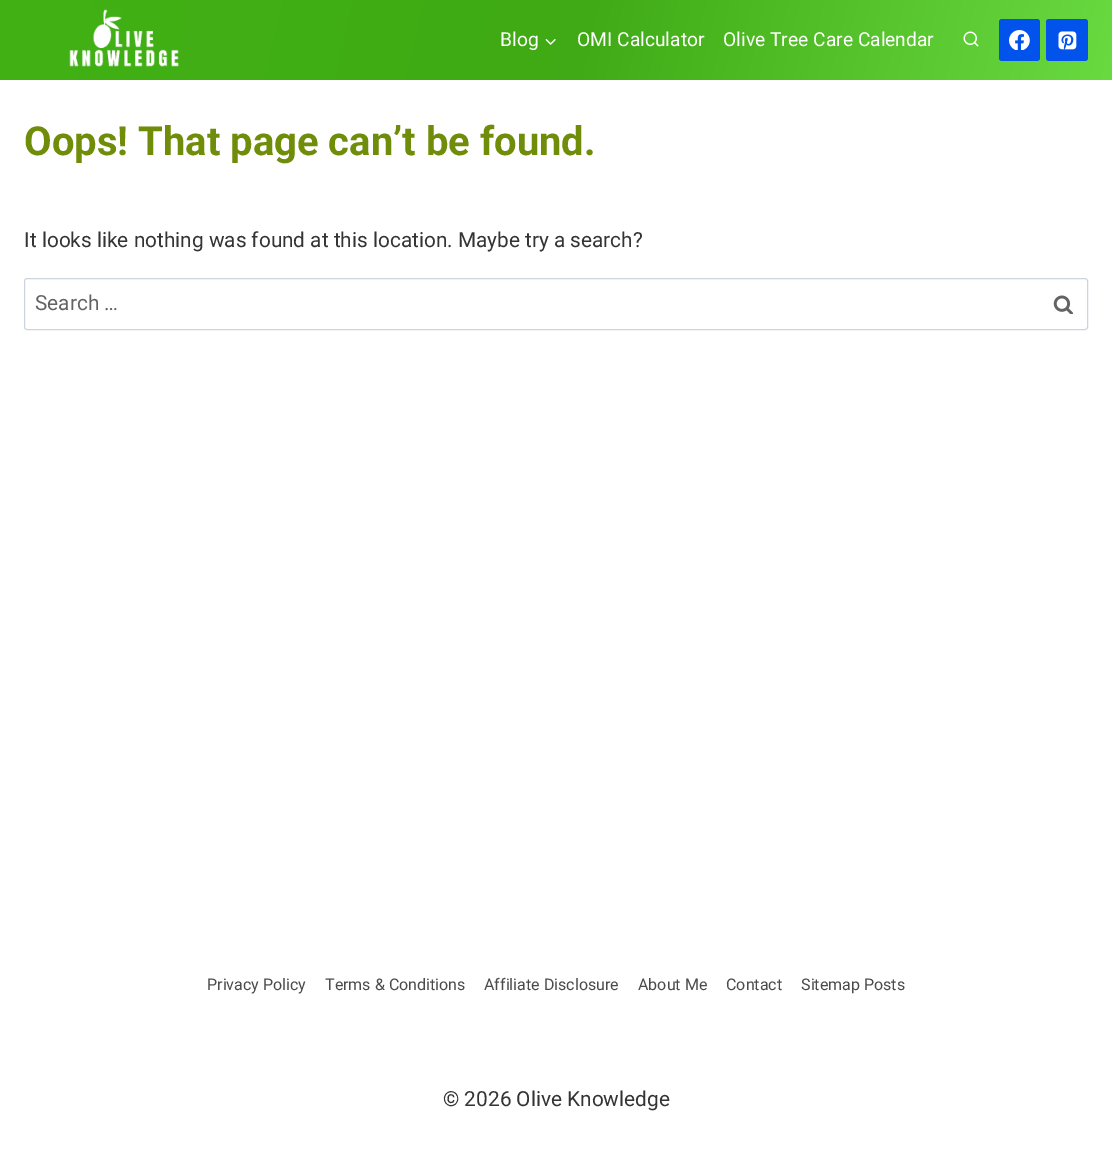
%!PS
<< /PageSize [1112 1167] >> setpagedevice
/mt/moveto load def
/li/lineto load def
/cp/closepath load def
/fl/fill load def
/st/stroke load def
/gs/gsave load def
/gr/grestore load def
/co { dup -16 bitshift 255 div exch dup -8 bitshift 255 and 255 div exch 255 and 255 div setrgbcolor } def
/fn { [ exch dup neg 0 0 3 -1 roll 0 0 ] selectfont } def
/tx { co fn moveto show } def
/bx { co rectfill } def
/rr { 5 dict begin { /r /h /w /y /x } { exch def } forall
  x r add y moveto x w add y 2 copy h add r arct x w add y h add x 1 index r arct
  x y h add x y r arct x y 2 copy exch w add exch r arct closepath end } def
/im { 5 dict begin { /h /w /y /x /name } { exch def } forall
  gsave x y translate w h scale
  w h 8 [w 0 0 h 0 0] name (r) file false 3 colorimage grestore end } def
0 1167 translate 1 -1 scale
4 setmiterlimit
0 0 1112 1167 16#FFFFFF bx
gs 0 0 mt 1112 0 li 1112 80 li 0 80 li cp clip newpath
<< /ShadingType 2 /ColorSpace /DeviceRGB /Coords [1093 164 19 -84] /Extend [true true] /Function << /FunctionType 3 /Domain [0 1] /Functions [<< /FunctionType 2 /Domain [0 1] /C0 [.416 .855 .255] /C1 [.247 .667 .082] /N 1 >> << /FunctionType 2 /Domain [0 1] /C0 [.247 .667 .082] /C1 [.251 .694 .078] /N 1 >>] /Bounds [.48] /Encode [0 1 0 1] >> >> shfill gr
(media/1.raw) 69 9 110 58 im
(media/2.raw) 545 39 11 6 im
(media/3.raw) 963 31 16 16 im
16#0253EB co
999 19 41 42 3 rr fl
(media/4.raw) 1009 30 21 20 im
1046 19 42 42 3 rr fl
(media/5.raw) 1058 31 19 19 im
16#CBD5E0 co
24.5 278.5 1063 51 2.5 rr st
(media/6.raw) 1053 295 20 19 im
(Blog) 500 46 /Roboto-Regular 19.25 16#FFFFFF tx
(OMI Calculator) 577 46 /Roboto-Regular 19.25 16#FFFFFF tx
(Olive Tree Care Calendar) 723 46 /Roboto-Regular 19.25 16#FFFFFF tx
(Oops! That page can’t be found.) 24 155 /Roboto-Bold 40 16#708D09 tx
(It looks like nothing was found at this location. Maybe try a search?) 24 247 /Roboto-Regular 20.8 16#343434 tx
(Search …) 35 310 /Roboto-Regular 20.8 16#636363 tx
(Privacy Policy) 207 990 /Roboto-Regular 16 16#4B4B4B tx
(Terms & Conditions) 325 990 /Roboto-Regular 16 16#4B4B4B tx
(Affiliate Disclosure) 484 990 /Roboto-Regular 16 16#4B4B4B tx
(About Me) 638 990 /Roboto-Regular 16 16#4B4B4B tx
(Contact) 726 990 /Roboto-Regular 16 16#4B4B4B tx
(Sitemap Posts) 801 990 /Roboto-Regular 16 16#4B4B4B tx
(© 2026 Olive Knowledge) 443 1106 /Roboto-Regular 20.8 16#343434 tx
showpage
